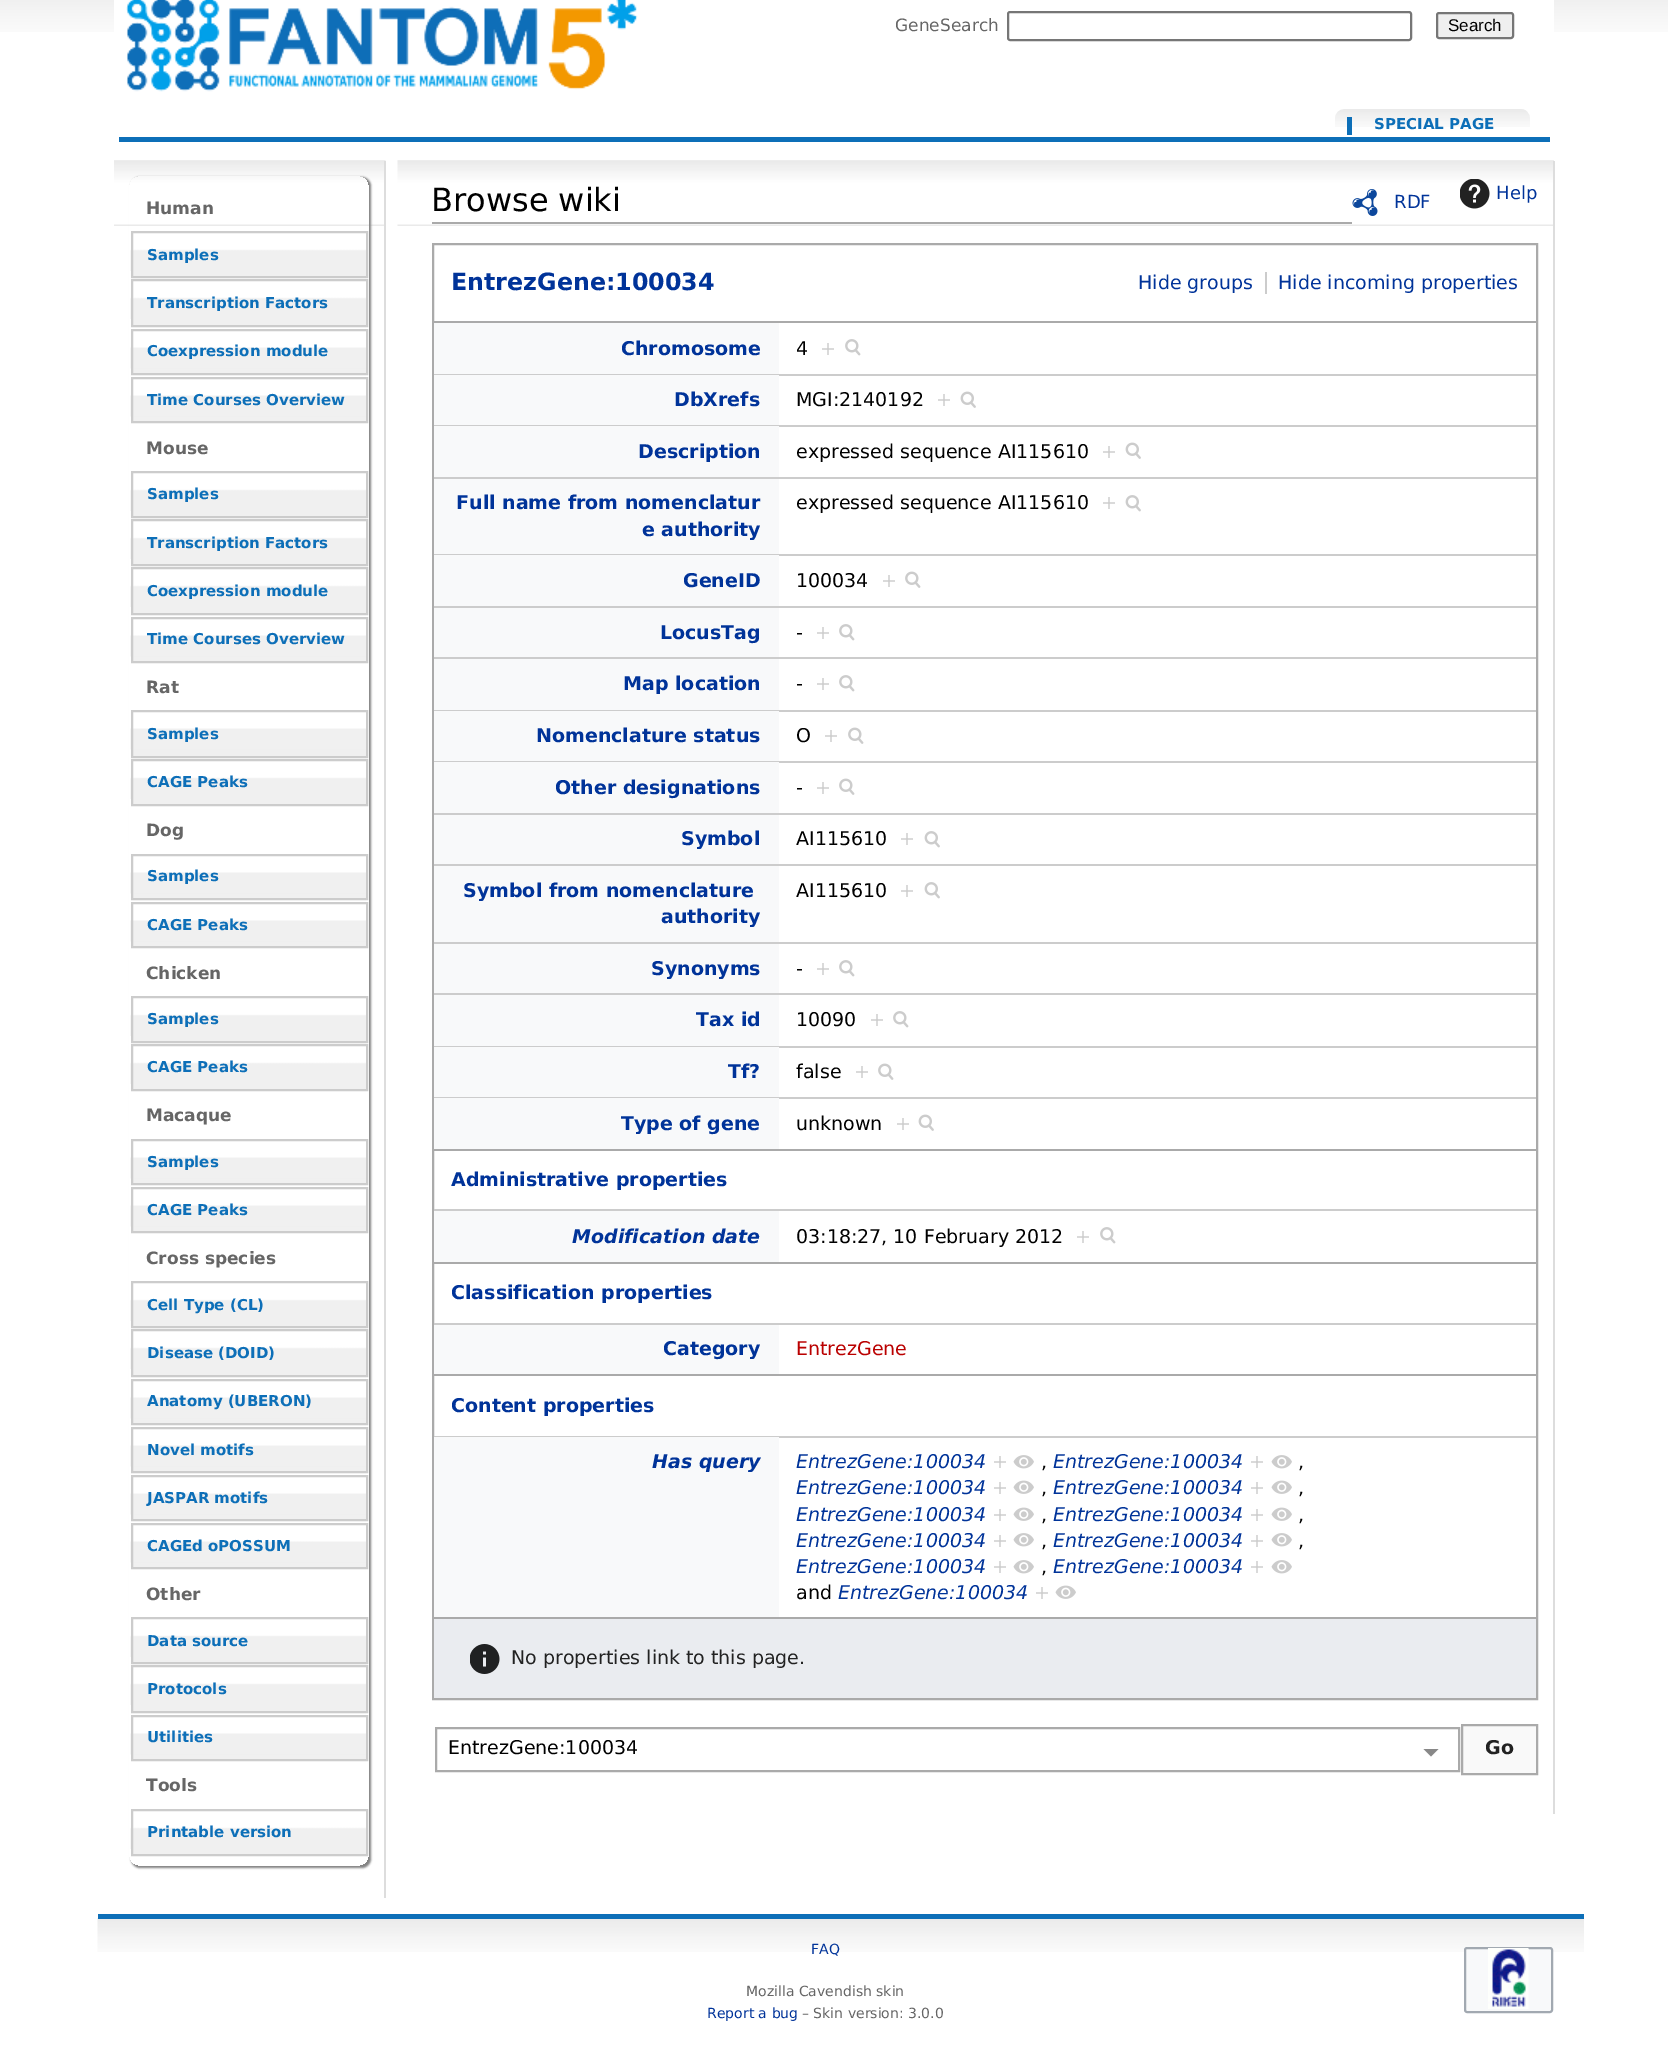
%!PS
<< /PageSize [1668 2055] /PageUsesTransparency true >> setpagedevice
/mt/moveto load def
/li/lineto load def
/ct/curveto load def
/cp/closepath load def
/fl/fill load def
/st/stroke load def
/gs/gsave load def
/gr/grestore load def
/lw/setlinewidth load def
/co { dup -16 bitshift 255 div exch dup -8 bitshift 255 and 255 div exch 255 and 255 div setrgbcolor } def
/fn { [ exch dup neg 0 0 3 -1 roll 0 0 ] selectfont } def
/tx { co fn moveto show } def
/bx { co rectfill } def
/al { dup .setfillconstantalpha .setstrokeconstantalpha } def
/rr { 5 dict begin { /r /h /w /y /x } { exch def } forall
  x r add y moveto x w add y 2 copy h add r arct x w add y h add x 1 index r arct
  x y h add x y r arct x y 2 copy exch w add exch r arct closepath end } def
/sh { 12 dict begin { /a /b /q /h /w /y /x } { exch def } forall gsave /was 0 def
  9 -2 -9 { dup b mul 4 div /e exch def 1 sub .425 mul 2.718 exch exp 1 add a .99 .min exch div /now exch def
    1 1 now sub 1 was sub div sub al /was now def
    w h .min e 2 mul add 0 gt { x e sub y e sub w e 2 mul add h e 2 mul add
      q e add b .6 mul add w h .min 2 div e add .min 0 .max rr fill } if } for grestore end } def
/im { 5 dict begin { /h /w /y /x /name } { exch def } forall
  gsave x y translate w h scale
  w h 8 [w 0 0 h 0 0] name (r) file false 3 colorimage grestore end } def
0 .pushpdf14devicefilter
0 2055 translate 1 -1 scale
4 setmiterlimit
0 0 1668 2055 16#FFFFFF bx
(media/1.raw) 0 0 1668 32 im
123 -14 mt 1545 -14 li 1550 -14 1554 -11 1554 -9 ct 1554 132 li 1554 134 1550 136 1545 136 ct 123 136 li 118 136 114 134 114 132 ct 114 -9 li 114 -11 118 -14 123 -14 ct cp fl
(media/2.raw) 126 0 512 92 im
119 137 1431 5 16#0D6FB8 bx
16#767676 co
2 lw
1008 12 403 28 2 rr st
16#EFEFEF co
1437 13 76 25 2 rr gs fl gr
16#767676 co
st
(media/3.raw) 1335 109 195 18 im
1347 117 5 18 16#0D6FB8 bx
(media/4.raw) 114 160 272 66 im
384 161 2 1737 16#DDDDDD bx
gs
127 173 mt 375 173 li 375 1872 li 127 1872 li cp 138 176 mt 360 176 li 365 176 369 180 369 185 ct 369 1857 li 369 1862 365 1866 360 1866 ct 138 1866 li 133 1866 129 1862 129 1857 ct 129 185 li 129 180 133 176 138 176 ct cp eoclip newpath
16#808080 co
131 177 240 1691 9 1 1 sh
gr
133 271 233 5 16#F0F0F0 bx
(media/5.raw) 130 232 236 39 im
16#CCCCCC co
132 232 235 45 rectstroke
133 319 233 6 16#F0F0F0 bx
(media/5.raw) 130 280 236 39 im
16#CCCCCC co
132 280 235 46 rectstroke
133 368 233 5 16#F0F0F0 bx
(media/6.raw) 130 329 236 40 im
16#CCCCCC co
132 330 235 44 rectstroke
133 416 233 5 16#F0F0F0 bx
(media/6.raw) 130 377 236 40 im
16#CCCCCC co
132 378 235 44 rectstroke
133 511 233 5 16#F0F0F0 bx
(media/5.raw) 130 472 236 39 im
16#CCCCCC co
132 472 235 45 rectstroke
133 559 233 5 16#F0F0F0 bx
(media/7.raw) 130 520 236 39 im
16#CCCCCC co
132 520 235 45 rectstroke
133 607 233 6 16#F0F0F0 bx
(media/8.raw) 130 568 236 39 im
16#CCCCCC co
132 568 235 46 rectstroke
133 656 233 5 16#F0F0F0 bx
(media/9.raw) 130 617 236 40 im
16#CCCCCC co
132 618 235 44 rectstroke
133 749 233 7 16#F0F0F0 bx
(media/6.raw) 130 710 236 40 im
16#CCCCCC co
132 711 235 46 rectstroke
133 799 233 5 16#F0F0F0 bx
(media/10.raw) 130 760 236 39 im
16#CCCCCC co
132 760 235 45 rectstroke
133 893 233 5 16#F0F0F0 bx
(media/11.raw) 130 854 236 40 im
16#CCCCCC co
132 855 235 44 rectstroke
133 941 233 5 16#F0F0F0 bx
(media/11.raw) 130 902 236 40 im
16#CCCCCC co
132 903 235 44 rectstroke
133 1036 233 5 16#F0F0F0 bx
(media/7.raw) 130 997 236 39 im
16#CCCCCC co
132 997 235 45 rectstroke
133 1084 233 5 16#F0F0F0 bx
(media/5.raw) 130 1045 236 39 im
16#CCCCCC co
132 1045 235 45 rectstroke
133 1178 233 5 16#F0F0F0 bx
(media/6.raw) 130 1139 236 40 im
16#CCCCCC co
132 1140 235 44 rectstroke
133 1226 233 5 16#F0F0F0 bx
(media/6.raw) 130 1187 236 40 im
16#CCCCCC co
132 1188 235 44 rectstroke
133 1321 233 5 16#F0F0F0 bx
(media/7.raw) 130 1282 236 39 im
16#CCCCCC co
132 1282 235 45 rectstroke
133 1369 233 6 16#F0F0F0 bx
(media/8.raw) 130 1330 236 39 im
16#CCCCCC co
132 1330 235 46 rectstroke
133 1418 233 5 16#F0F0F0 bx
(media/9.raw) 130 1379 236 40 im
16#CCCCCC co
132 1380 235 44 rectstroke
133 1466 233 5 16#F0F0F0 bx
(media/6.raw) 130 1427 236 40 im
16#CCCCCC co
132 1428 235 44 rectstroke
133 1514 233 5 16#F0F0F0 bx
(media/6.raw) 130 1475 236 40 im
16#CCCCCC co
132 1476 235 44 rectstroke
133 1562 233 5 16#F0F0F0 bx
(media/9.raw) 130 1523 236 40 im
16#CCCCCC co
132 1524 235 44 rectstroke
133 1657 233 5 16#F0F0F0 bx
(media/10.raw) 130 1618 236 39 im
16#CCCCCC co
132 1618 235 45 rectstroke
133 1705 233 6 16#F0F0F0 bx
(media/10.raw) 130 1666 236 39 im
16#CCCCCC co
132 1666 235 46 rectstroke
133 1754 233 5 16#F0F0F0 bx
(media/11.raw) 130 1715 236 40 im
16#CCCCCC co
132 1716 235 44 rectstroke
133 1849 233 5 16#F0F0F0 bx
(media/5.raw) 130 1810 236 39 im
16#CCCCCC co
132 1810 235 45 rectstroke
(media/12.raw) 397 160 1157 66 im
1553 161 2 1653 16#DDDDDD bx
432 222 920 2 16#AAAAAA bx
(media/13.raw) 1352 189 26 27 im
(media/14.raw) 1460 179 30 30 im
433 244 1104 1455 rectstroke
434 321 1102 2 16#AAAAAA bx
1265 272 2 22 16#CCCCCC bx
434 1149 1102 2 16#AAAAAA bx
434 323 345 51 16#F8F9FA bx
(media/15.raw) 845 339 16 17 im
434 374 1102 2 16#CCCCCC bx
434 375 345 50 16#F8F9FA bx
(media/16.raw) 960 391 16 17 im
434 425 1102 2 16#CCCCCC bx
434 426 345 51 16#F8F9FA bx
(media/16.raw) 1125 442 16 17 im
434 477 1102 2 16#CCCCCC bx
434 479 345 75 16#F8F9FA bx
(media/17.raw) 1125 495 16 17 im
434 554 1102 2 16#CCCCCC bx
434 555 345 51 16#F8F9FA bx
(media/18.raw) 905 571 16 17 im
434 606 1102 2 16#CCCCCC bx
434 608 345 49 16#F8F9FA bx
(media/15.raw) 839 624 16 17 im
434 657 1102 2 16#CCCCCC bx
434 659 345 51 16#F8F9FA bx
(media/15.raw) 839 675 16 17 im
434 710 1102 2 16#CCCCCC bx
434 711 345 50 16#F8F9FA bx
(media/18.raw) 848 727 16 17 im
434 761 1102 2 16#CCCCCC bx
434 762 345 51 16#F8F9FA bx
(media/18.raw) 839 778 16 17 im
434 813 1102 2 16#CCCCCC bx
434 815 345 49 16#F8F9FA bx
(media/17.raw) 924 831 16 17 im
434 864 1102 2 16#CCCCCC bx
434 866 345 76 16#F8F9FA bx
(media/17.raw) 924 882 16 17 im
434 942 1102 2 16#CCCCCC bx
434 944 345 49 16#F8F9FA bx
(media/15.raw) 839 960 16 17 im
434 993 1102 2 16#CCCCCC bx
434 995 345 51 16#F8F9FA bx
(media/15.raw) 893 1011 16 17 im
434 1046 1102 2 16#CCCCCC bx
434 1047 345 50 16#F8F9FA bx
(media/18.raw) 878 1063 16 17 im
434 1097 1102 2 16#CCCCCC bx
434 1098 345 51 16#F8F9FA bx
(media/16.raw) 918 1114 16 17 im
434 1262 1102 2 16#AAAAAA bx
434 1209 1102 2 16#CCCCCC bx
434 1211 345 51 16#F8F9FA bx
(media/15.raw) 1100 1227 16 17 im
434 1374 1102 2 16#AAAAAA bx
434 1323 1102 2 16#CCCCCC bx
434 1325 345 49 16#F8F9FA bx
434 1617 1102 2 16#AAAAAA bx
434 1436 1102 2 16#CCCCCC bx
434 1437 345 180 16#F8F9FA bx
(media/19.raw) 1013 1455 21 14 im
(media/19.raw) 1271 1455 21 14 im
(media/20.raw) 1013 1480 21 14 im
(media/20.raw) 1271 1480 21 14 im
(media/20.raw) 1013 1507 21 14 im
(media/20.raw) 1271 1507 21 14 im
(media/19.raw) 1013 1533 21 14 im
(media/19.raw) 1271 1533 21 14 im
(media/19.raw) 1013 1560 21 14 im
(media/19.raw) 1271 1560 21 14 im
(media/20.raw) 1055 1585 21 14 im
434 1619 1102 79 16#EAECF0 bx
(media/21.raw) 470 1644 30 30 im
16#888888 co
1423.5 1749 mt 1431 1756.5 li 1438.5 1749 li cp fl
16#AAAAAA co
436 1728 1023 43 rectstroke
16#F9F9F9 co
1462 1725 mt 1537 1725 li 1537 1774 li 1462 1774 li cp gs fl gr
16#AAAAAA co
st
(media/22.raw) 97 1918 1487 34 im
98 1914 1486 5 16#0D6FB8 bx
16#F8F9FA co
1465 1948 87 64 2 rr gs fl gr
16#A2A9B1 co
st
(media/23.raw) 1488 1948 41 61 im
(GeneSearch) 895 31 /DejaVuSans-Regular 17 16#666666 tx
(Search) 1448 31 /LiberationSans-Regular 17 16#000000 tx
(SPECIAL PAGE) 1374 129 /DejaVuSans-Bold 15 16#0D6FB8 tx
(Human) 146 214 /DejaVuSans-Bold 17 16#666666 tx
(Samples) 147 260 /DejaVuSans-Bold 15 16#0D6FB8 tx
(Transcription Factors) 147 308 /DejaVuSans-Bold 15 16#0D6FB8 tx
(Coexpression module) 147 356 /DejaVuSans-Bold 15 16#0D6FB8 tx
(Time Courses Overview) 147 405 /DejaVuSans-Bold 15 16#0D6FB8 tx
(Mouse) 146 454 /DejaVuSans-Bold 17 16#666666 tx
(Samples) 147 499 /DejaVuSans-Bold 15 16#0D6FB8 tx
(Transcription Factors) 147 548 /DejaVuSans-Bold 15 16#0D6FB8 tx
(Coexpression module) 147 596 /DejaVuSans-Bold 15 16#0D6FB8 tx
(Time Courses Overview) 147 644 /DejaVuSans-Bold 15 16#0D6FB8 tx
(Rat) 146 693 /DejaVuSans-Bold 17 16#666666 tx
(Samples) 147 739 /DejaVuSans-Bold 15 16#0D6FB8 tx
(CAGE Peaks) 147 787 /DejaVuSans-Bold 15 16#0D6FB8 tx
(Dog) 146 836 /DejaVuSans-Bold 17 16#666666 tx
(Samples) 147 881 /DejaVuSans-Bold 15 16#0D6FB8 tx
(CAGE Peaks) 147 930 /DejaVuSans-Bold 15 16#0D6FB8 tx
(Chicken) 146 979 /DejaVuSans-Bold 17 16#666666 tx
(Samples) 147 1024 /DejaVuSans-Bold 15 16#0D6FB8 tx
(CAGE Peaks) 147 1072 /DejaVuSans-Bold 15 16#0D6FB8 tx
(Macaque) 146 1121 /DejaVuSans-Bold 17 16#666666 tx
(Samples) 147 1167 /DejaVuSans-Bold 15 16#0D6FB8 tx
(CAGE Peaks) 147 1215 /DejaVuSans-Bold 15 16#0D6FB8 tx
(Cross species) 146 1264 /DejaVuSans-Bold 17 16#666666 tx
(Cell Type \(CL\)) 147 1310 /DejaVuSans-Bold 15 16#0D6FB8 tx
(Disease \(DOID\)) 147 1358 /DejaVuSans-Bold 15 16#0D6FB8 tx
(Anatomy \(UBERON\)) 147 1406 /DejaVuSans-Bold 15 16#0D6FB8 tx
(Novel motifs) 147 1455 /DejaVuSans-Bold 15 16#0D6FB8 tx
(JASPAR motifs) 147 1503 /DejaVuSans-Bold 15 16#0D6FB8 tx
(CAGEd oPOSSUM) 147 1551 /DejaVuSans-Bold 15 16#0D6FB8 tx
(Other) 146 1600 /DejaVuSans-Bold 17 16#666666 tx
(Data source) 147 1646 /DejaVuSans-Bold 15 16#0D6FB8 tx
(Protocols) 147 1694 /DejaVuSans-Bold 15 16#0D6FB8 tx
(Utilities) 147 1742 /DejaVuSans-Bold 15 16#0D6FB8 tx
(Tools) 146 1791 /DejaVuSans-Bold 17 16#666666 tx
(Printable version) 147 1837 /DejaVuSans-Bold 15 16#0D6FB8 tx
(Browse wiki) 431 211 /DejaVuSans-Regular 32 16#000000 tx
(RDF) 1394 208 /DejaVuSans-Regular 18 16#003399 tx
(Help) 1496 199 /DejaVuSans-Regular 18 16#003399 tx
(EntrezGene:100034) 451 290 /DejaVuSans-Bold 23.75 16#003399 tx
(Hide groups) 1138 289 /DejaVuSans-Regular 19 16#003399 tx
(Hide incoming properties) 1278 289 /DejaVuSans-Regular 19 16#003399 tx
(Chromosome) 621 355 /DejaVuSans-Bold 19 16#003399 tx
(4) 796 355 /DejaVuSans-Regular 19 16#000000 tx
(+) 820 355 /DejaVuSans-Regular 19 16#CCCCCC tx
(DbXrefs) 674 406 /DejaVuSans-Bold 19 16#003399 tx
(MGI:2140192) 796 406 /DejaVuSans-Regular 19 16#000000 tx
(+) 936 406 /DejaVuSans-Regular 19 16#CCCCCC tx
(Description) 638 458 /DejaVuSans-Bold 19 16#003399 tx
(expressed sequence AI115610) 796 458 /DejaVuSans-Regular 19 16#000000 tx
(+) 1101 458 /DejaVuSans-Regular 19 16#CCCCCC tx
(Full name from nomenclatur) 456 509 /DejaVuSans-Bold 19 16#003399 tx
(e authority) 642 536 /DejaVuSans-Bold 19 16#003399 tx
(expressed sequence AI115610) 796 509 /DejaVuSans-Regular 19 16#000000 tx
(+) 1101 509 /DejaVuSans-Regular 19 16#CCCCCC tx
(GeneID) 683 587 /DejaVuSans-Bold 19 16#003399 tx
(100034) 796 587 /DejaVuSans-Regular 19 16#000000 tx
(+) 881 587 /DejaVuSans-Regular 19 16#CCCCCC tx
(LocusTag) 660 639 /DejaVuSans-Bold 19 16#003399 tx
(-) 796 639 /DejaVuSans-Regular 19 16#000000 tx
(+) 815 639 /DejaVuSans-Regular 19 16#CCCCCC tx
(Map location) 623 690 /DejaVuSans-Bold 19 16#003399 tx
(-) 796 690 /DejaVuSans-Regular 19 16#000000 tx
(+) 815 690 /DejaVuSans-Regular 19 16#CCCCCC tx
(Nomenclature status) 536 742 /DejaVuSans-Bold 19 16#003399 tx
(O) 796 742 /DejaVuSans-Regular 19 16#000000 tx
(+) 823 742 /DejaVuSans-Regular 19 16#CCCCCC tx
(Other designations) 555 794 /DejaVuSans-Bold 19 16#003399 tx
(-) 796 794 /DejaVuSans-Regular 19 16#000000 tx
(+) 815 794 /DejaVuSans-Regular 19 16#CCCCCC tx
(Symbol) 681 845 /DejaVuSans-Bold 19 16#003399 tx
(AI115610) 796 845 /DejaVuSans-Regular 19 16#000000 tx
(+) 899 845 /DejaVuSans-Regular 19 16#CCCCCC tx
(Symbol from nomenclature) 463 897 /DejaVuSans-Bold 19 16#003399 tx
(authority) 661 923 /DejaVuSans-Bold 19 16#003399 tx
(AI115610) 796 897 /DejaVuSans-Regular 19 16#000000 tx
(+) 899 897 /DejaVuSans-Regular 19 16#CCCCCC tx
(Synonyms) 651 975 /DejaVuSans-Bold 19 16#003399 tx
(-) 796 975 /DejaVuSans-Regular 19 16#000000 tx
(+) 815 975 /DejaVuSans-Regular 19 16#CCCCCC tx
(Tax id) 696 1026 /DejaVuSans-Bold 19 16#003399 tx
(10090) 796 1026 /DejaVuSans-Regular 19 16#000000 tx
(+) 869 1026 /DejaVuSans-Regular 19 16#CCCCCC tx
(Tf?) 728 1078 /DejaVuSans-Bold 19 16#003399 tx
(false) 796 1078 /DejaVuSans-Regular 19 16#000000 tx
(+) 854 1078 /DejaVuSans-Regular 19 16#CCCCCC tx
(Type of gene) 621 1130 /DejaVuSans-Bold 19 16#003399 tx
(unknown) 796 1130 /DejaVuSans-Regular 19 16#000000 tx
(+) 895 1130 /DejaVuSans-Regular 19 16#CCCCCC tx
(Administrative properties) 451 1186 /DejaVuSans-Bold 19 16#003399 tx
(Modification date) 572 1243 /DejaVuSans-BoldItalic 19 16#003399 tx
(03:18:27, 10 February 2012) 796 1243 /DejaVuSans-Regular 19 16#000000 tx
(+) 1075 1243 /DejaVuSans-Regular 19 16#CCCCCC tx
(Classification properties) 451 1299 /DejaVuSans-Bold 19 16#003399 tx
(Category) 663 1355 /DejaVuSans-Bold 19 16#003399 tx
(EntrezGene) 796 1355 /DejaVuSans-Regular 19 16#BA0000 tx
(Content properties) 451 1412 /DejaVuSans-Bold 19 16#003399 tx
(Has query) 652 1468 /DejaVuSans-BoldItalic 19 16#003399 tx
(EntrezGene:100034) 796 1468 /DejaVuSans-Italic 19 16#003399 tx
(+) 992 1468 /DejaVuSans-Regular 19 16#CCCCCC tx
(,) 1041 1468 /DejaVuSans-Regular 19 16#000000 tx
(EntrezGene:100034) 1053 1468 /DejaVuSans-Italic 19 16#003399 tx
(+) 1249 1468 /DejaVuSans-Regular 19 16#CCCCCC tx
(,) 1298 1468 /DejaVuSans-Regular 19 16#000000 tx
(EntrezGene:100034) 796 1494 /DejaVuSans-Italic 19 16#003399 tx
(+) 992 1494 /DejaVuSans-Regular 19 16#CCCCCC tx
(,) 1041 1494 /DejaVuSans-Regular 19 16#000000 tx
(EntrezGene:100034) 1053 1494 /DejaVuSans-Italic 19 16#003399 tx
(+) 1249 1494 /DejaVuSans-Regular 19 16#CCCCCC tx
(,) 1298 1494 /DejaVuSans-Regular 19 16#000000 tx
(EntrezGene:100034) 796 1521 /DejaVuSans-Italic 19 16#003399 tx
(+) 992 1521 /DejaVuSans-Regular 19 16#CCCCCC tx
(,) 1041 1521 /DejaVuSans-Regular 19 16#000000 tx
(EntrezGene:100034) 1053 1521 /DejaVuSans-Italic 19 16#003399 tx
(+) 1249 1521 /DejaVuSans-Regular 19 16#CCCCCC tx
(,) 1298 1521 /DejaVuSans-Regular 19 16#000000 tx
(EntrezGene:100034) 796 1547 /DejaVuSans-Italic 19 16#003399 tx
(+) 992 1547 /DejaVuSans-Regular 19 16#CCCCCC tx
(,) 1041 1547 /DejaVuSans-Regular 19 16#000000 tx
(EntrezGene:100034) 1053 1547 /DejaVuSans-Italic 19 16#003399 tx
(+) 1249 1547 /DejaVuSans-Regular 19 16#CCCCCC tx
(,) 1298 1547 /DejaVuSans-Regular 19 16#000000 tx
(EntrezGene:100034) 796 1573 /DejaVuSans-Italic 19 16#003399 tx
(+) 992 1573 /DejaVuSans-Regular 19 16#CCCCCC tx
(,) 1041 1573 /DejaVuSans-Regular 19 16#000000 tx
(EntrezGene:100034) 1053 1573 /DejaVuSans-Italic 19 16#003399 tx
(+) 1249 1573 /DejaVuSans-Regular 19 16#CCCCCC tx
(and) 796 1599 /DejaVuSans-Regular 19 16#000000 tx
(EntrezGene:100034) 838 1599 /DejaVuSans-Italic 19 16#003399 tx
(+) 1034 1599 /DejaVuSans-Regular 19 16#CCCCCC tx
(No properties link to this page.) 511 1664 /DejaVuSans-Regular 19 16#222222 tx
(EntrezGene:100034) 448 1754 /DejaVuSans-Regular 19 16#000000 tx
(Go) 1485 1754 /DejaVuSans-Bold 19 16#222222 tx
(FAQ) 811 1954 /DejaVuSans-Regular 14 16#003399 tx
(Mozilla Cavendish skin) 746 1996 /DejaVuSans-Regular 14 16#666666 tx
(Report a bug) 707 2018 /DejaVuSans-Regular 14 16#003399 tx
(– Skin version: 3.0.0) 802 2018 /DejaVuSans-Regular 14 16#666666 tx
.poppdf14devicefilter showpage
